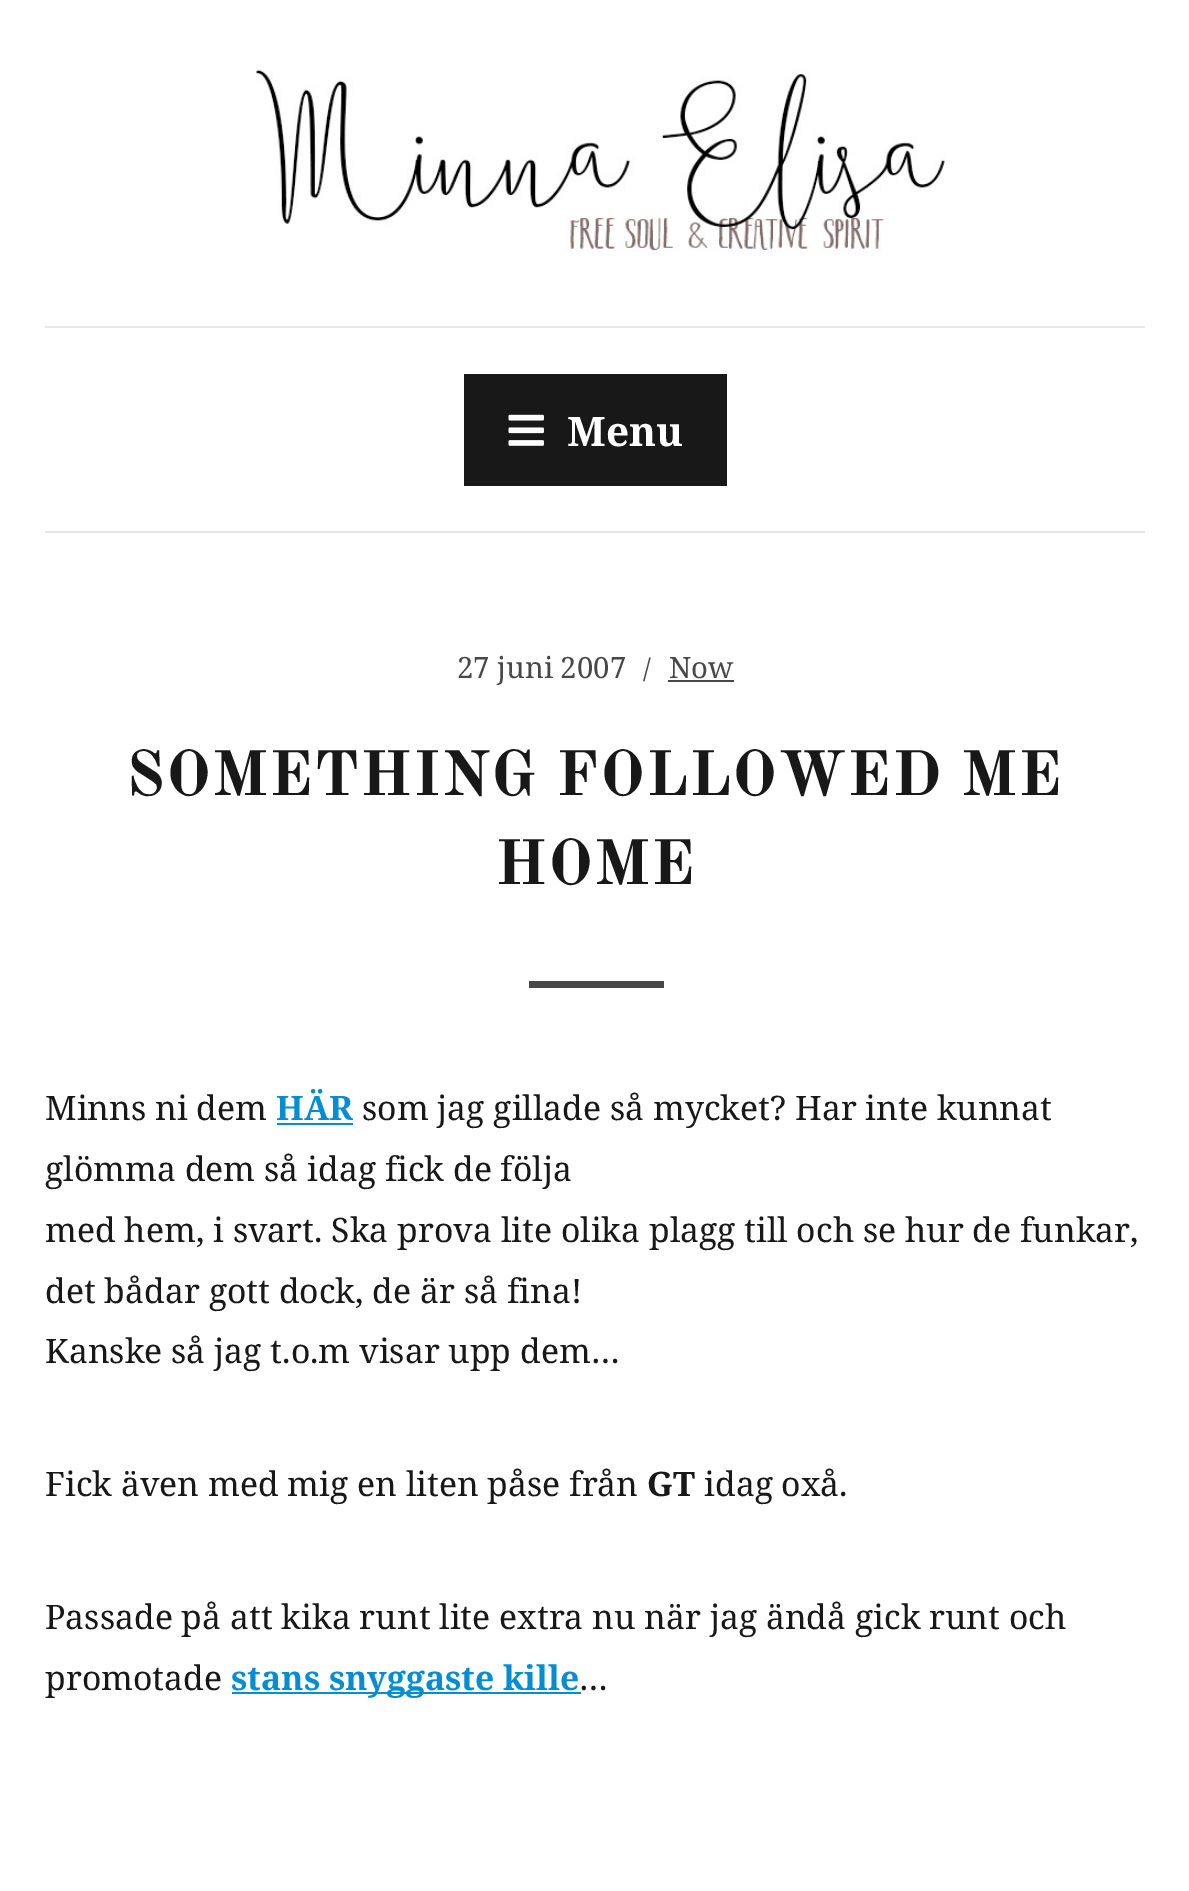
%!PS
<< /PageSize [1189 1891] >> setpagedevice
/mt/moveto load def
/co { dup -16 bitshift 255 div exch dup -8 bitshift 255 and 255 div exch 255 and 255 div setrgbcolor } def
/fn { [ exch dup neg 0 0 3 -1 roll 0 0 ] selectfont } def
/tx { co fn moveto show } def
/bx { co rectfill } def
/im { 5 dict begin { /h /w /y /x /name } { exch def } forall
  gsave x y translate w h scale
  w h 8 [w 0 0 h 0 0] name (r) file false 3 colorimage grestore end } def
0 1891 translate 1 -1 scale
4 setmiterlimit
0 0 1189 1891 16#FFFFFF bx
(media/1.raw) 256 69 691 183 im
45 326 1100 2 16#E6E6E6 bx
45 531 1100 2 16#E6E6E6 bx
464 374 263 112 16#181818 bx
(media/2.raw) 508 414 36 32 im
668 680 66 2 16#484848 bx
529 981 135 7 16#484848 bx
277 1123 76 2 16#058DD1 bx
232 1692 349 2 16#058DD1 bx
(Menu) 567 446 /NotoSerif-Bold 40.5 16#FFFFFF tx
(27 juni 2007) 457 678 /NotoSerif-Regular 29.25 16#484848 tx
(/) 643 678 /NotoSerif-Regular 27 16#484848 tx
(Now) 669 678 /NotoSerif-Regular 29.25 16#484848 tx
/OldStandardTT-Bold 63 fn
16#181818 co
126 795 mt 1.1 0 (SOMETHING FOLLOWED ME) ashow
495 884 mt 1.1 0 (HOME) ashow
(Minns ni dem) 45 1120 /NotoSerif-Regular 33.75 16#181818 tx
(HÄR) 276 1120 /NotoSerif-Bold 33.75 16#058DD1 tx
(som jag gillade så mycket? Har inte kunnat) 362 1120 /NotoSerif-Regular 33.75 16#181818 tx
(glömma dem så idag fick de följa) 45 1181 /NotoSerif-Regular 33.75 16#181818 tx
(med hem, i svart. Ska prova lite olika plagg till och se hur de funkar,) 45 1242 /NotoSerif-Regular 33.75 16#181818 tx
(det bådar gott dock, de är så fina!) 45 1303 /NotoSerif-Regular 33.75 16#181818 tx
(Kanske så jag t.o.m visar upp dem…) 45 1363 /NotoSerif-Regular 33.75 16#181818 tx
(Fick även med mig en liten påse från) 45 1496 /NotoSerif-Regular 33.75 16#181818 tx
(GT) 647 1496 /NotoSerif-Bold 33.75 16#181818 tx
(idag oxå.) 704 1496 /NotoSerif-Regular 33.75 16#181818 tx
(Passade på att kika runt lite extra nu när jag ändå gick runt och) 45 1629 /NotoSerif-Regular 33.75 16#181818 tx
(promotade) 45 1690 /NotoSerif-Regular 33.75 16#181818 tx
(stans snyggaste kille) 231 1690 /NotoSerif-Bold 33.75 16#058DD1 tx
(…) 579 1690 /NotoSerif-Regular 33.75 16#181818 tx
showpage
